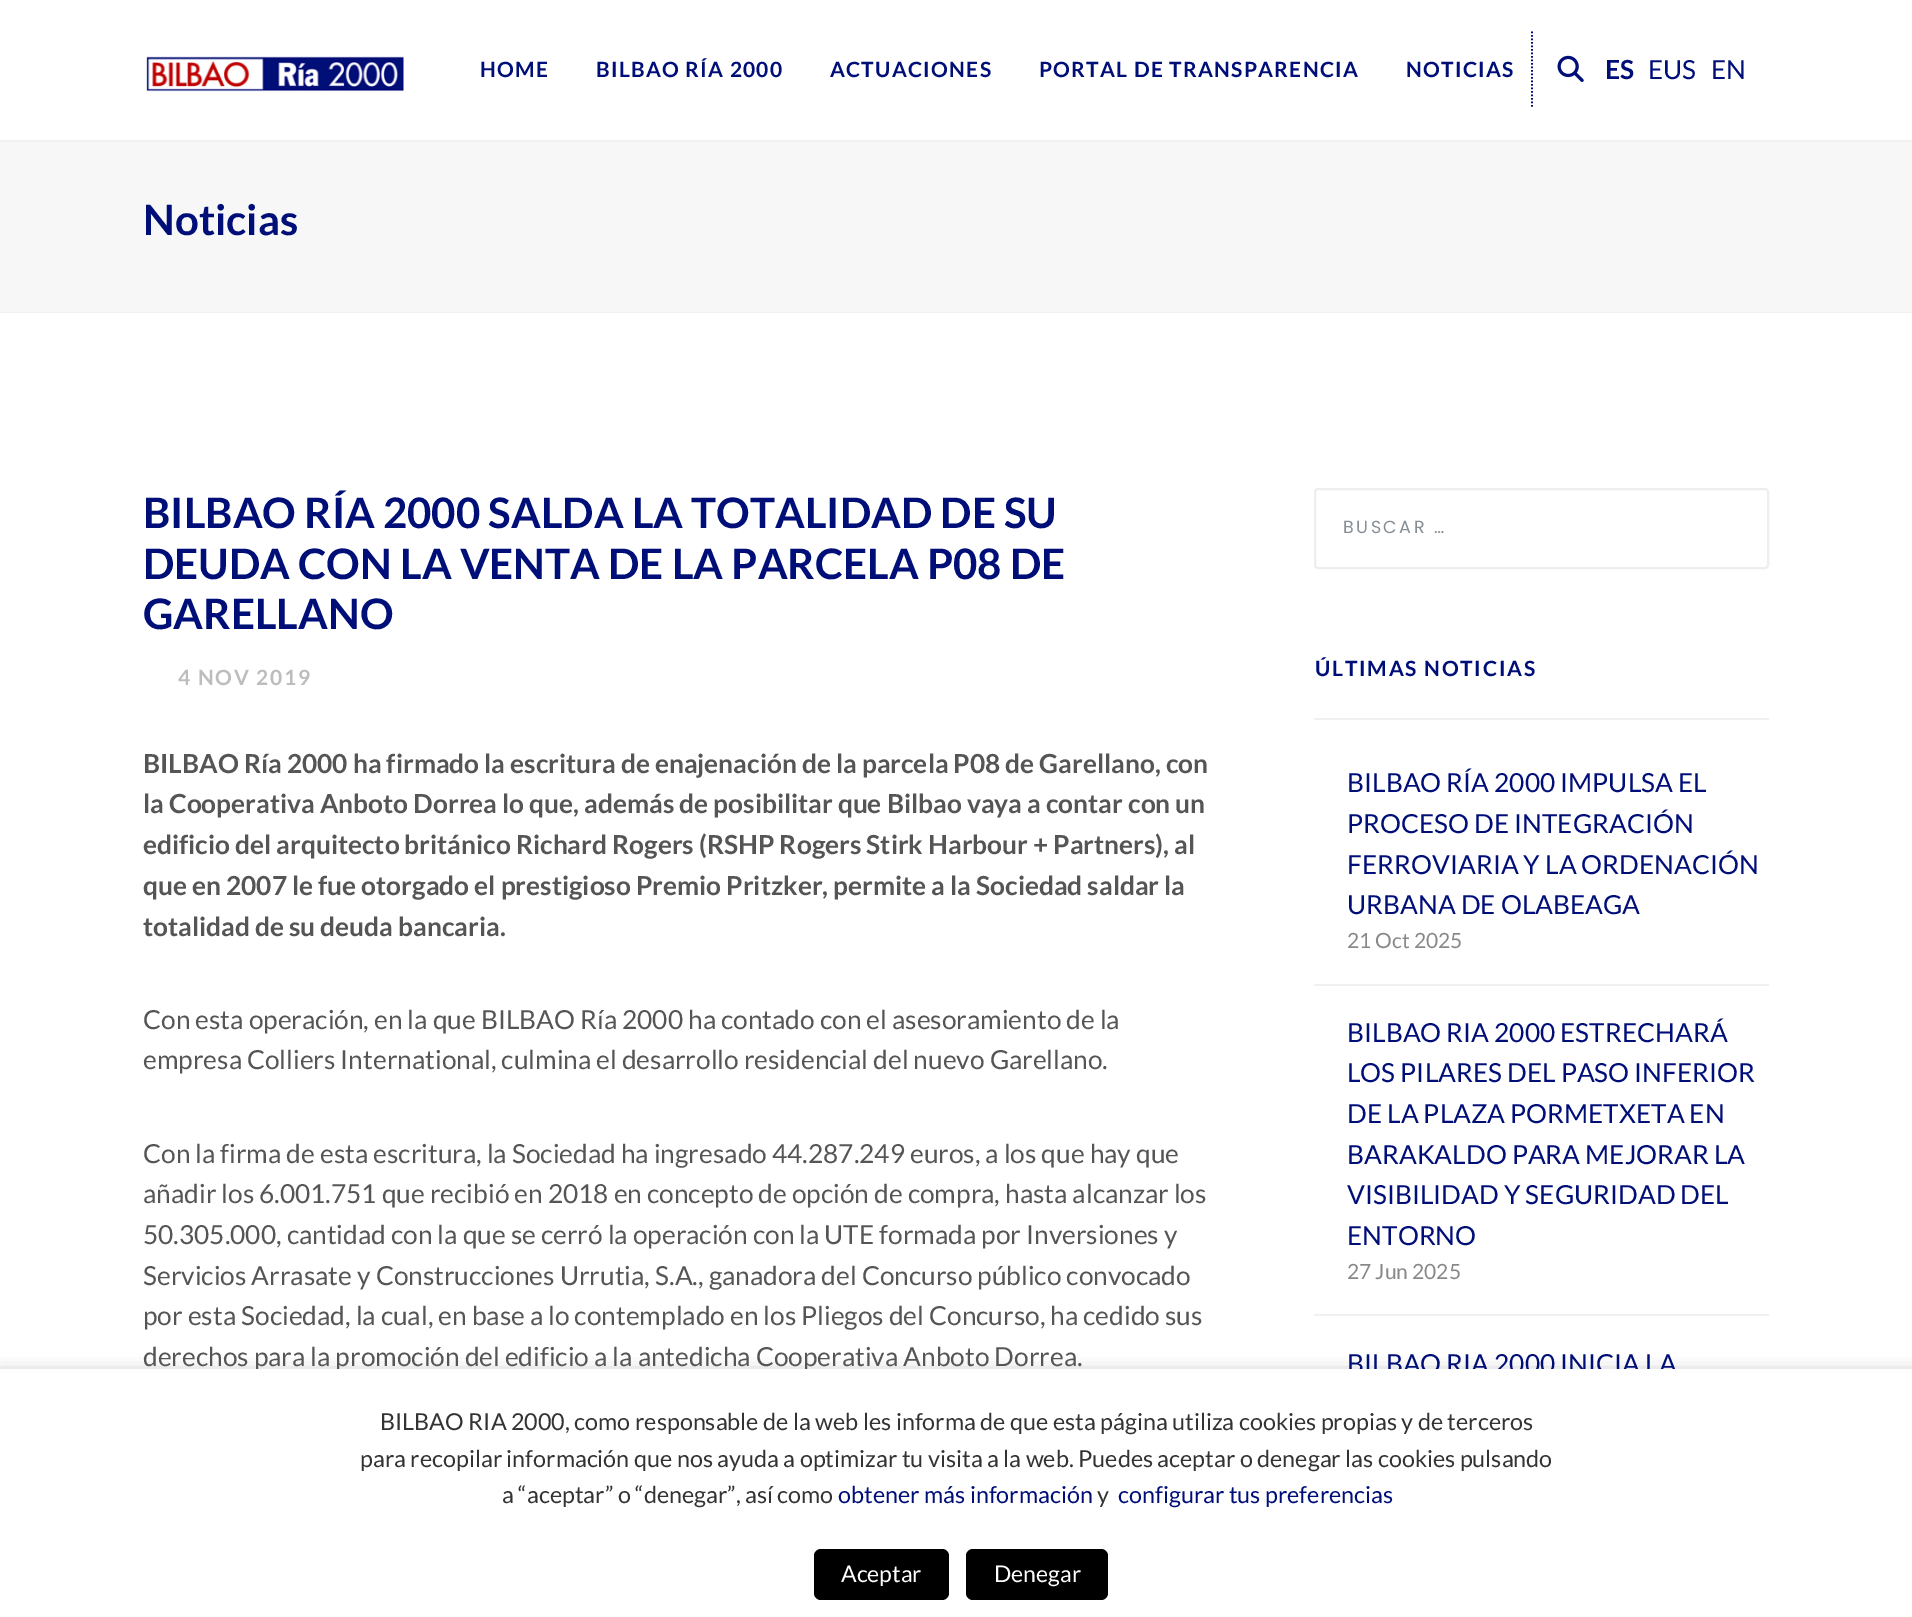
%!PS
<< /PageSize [1912 1617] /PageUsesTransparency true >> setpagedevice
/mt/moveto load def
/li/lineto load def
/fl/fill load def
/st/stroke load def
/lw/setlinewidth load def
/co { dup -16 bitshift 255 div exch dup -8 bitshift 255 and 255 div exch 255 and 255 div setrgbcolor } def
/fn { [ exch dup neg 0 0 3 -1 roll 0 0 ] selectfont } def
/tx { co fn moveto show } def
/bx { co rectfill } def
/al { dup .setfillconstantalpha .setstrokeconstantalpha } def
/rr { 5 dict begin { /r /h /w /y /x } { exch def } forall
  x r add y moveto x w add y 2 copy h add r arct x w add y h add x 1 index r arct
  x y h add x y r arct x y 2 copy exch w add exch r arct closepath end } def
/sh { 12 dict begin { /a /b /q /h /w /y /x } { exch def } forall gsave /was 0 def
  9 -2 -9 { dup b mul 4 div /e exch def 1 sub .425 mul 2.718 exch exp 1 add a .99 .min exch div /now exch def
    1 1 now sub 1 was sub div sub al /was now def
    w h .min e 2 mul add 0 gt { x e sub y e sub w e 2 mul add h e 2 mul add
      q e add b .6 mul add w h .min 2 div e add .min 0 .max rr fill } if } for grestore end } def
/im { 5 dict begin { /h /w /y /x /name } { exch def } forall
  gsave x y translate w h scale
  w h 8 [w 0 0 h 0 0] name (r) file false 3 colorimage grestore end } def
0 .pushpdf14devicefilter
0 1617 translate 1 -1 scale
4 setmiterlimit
0 0 1912 1617 16#F7F7F7 bx
0 0 1912 140 16#FFFFFF bx
0 140 1912 2 16#F2F2F2 bx
(media/1.raw) 146 56 258 36 im
16#000E78 co
1.8 lw
[1.75 1.75] 0 setdash
1532 31.5 mt 1532 108.5 li st
(media/2.raw) 1557 55 27 27 im
0 312 1912 1 16#F2F2F2 bx
0 313 1912 1056 16#FFFFFF bx
16#EEEEEE co
2 lw
[] 0 setdash
1315 489 453 79 3 rr st
1314 718 455 2 16#F0F0F0 bx
1314 984 455 2 16#F0F0F0 bx
1314 1314 455 2 16#F0F0F0 bx
16#000000 co
0 1377 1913 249 0 9 .5 sh
/Lato-Bold 21 fn
16#000E78 co
480 77 mt 1.25 0 (HOME) ashow
596 77 mt 1.25 0 (BILBAO RÍA 2000) ashow
830 77 mt 1.25 0 (ACTUACIONES) ashow
1039 77 mt 1.25 0 (PORTAL DE TRANSPARENCIA) ashow
1406 77 mt 1.25 0 (NOTICIAS) ashow
(ES) 1605 79 /Lato-Bold 26.25 16#000E78 tx
(EUS) 1648 79 /Lato-Regular 26.25 16#000E78 tx
(EN) 1711 79 /Lato-Regular 26.25 16#000E78 tx
(Noticias) 143 235 /Lato-Bold 42 16#000E78 tx
(BILBAO RÍA 2000 SALDA LA TOTALIDAD DE SU) 143 528 /Lato-Bold 42 16#000E78 tx
(DEUDA CON LA VENTA DE LA PARCELA P08 DE) 143 579 /Lato-Bold 42 16#000E78 tx
(GARELLANO) 143 629 /Lato-Bold 42 16#000E78 tx
/Lato-Bold 21 fn
16#BDBDBD co
178 685 mt 1.75 0 (4 NOV 2019) ashow
(BILBAO Ría 2000 ha firmado la escritura de enajenación de la parcela P08 de Garellano, con) 143 773 /Lato-Bold 26.25 16#555555 tx
(la Cooperativa Anboto Dorrea lo que, además de posibilitar que Bilbao vaya a contar con un) 143 813 /Lato-Bold 26.25 16#555555 tx
(edificio del arquitecto británico Richard Rogers \(RSHP Rogers Stirk Harbour + Partners\), al) 143 854 /Lato-Bold 26.25 16#555555 tx
(que en 2007 le fue otorgado el prestigioso Premio Pritzker, permite a la Sociedad saldar la) 143 895 /Lato-Bold 26.25 16#555555 tx
(totalidad de su deuda bancaria.) 143 936 /Lato-Bold 26.25 16#555555 tx
(Con esta operación, en la que BILBAO Ría 2000 ha contado con el asesoramiento de la) 143 1029 /Lato-Regular 26.25 16#555555 tx
(empresa Colliers International, culmina el desarrollo residencial del nuevo Garellano.) 143 1069 /Lato-Regular 26.25 16#555555 tx
(Con la firma de esta escritura, la Sociedad ha ingresado 44.287.249 euros, a los que hay que) 143 1163 /Lato-Regular 26.25 16#555555 tx
(añadir los 6.001.751 que recibió en 2018 en concepto de opción de compra, hasta alcanzar los) 143 1203 /Lato-Regular 26.25 16#555555 tx
(50.305.000, cantidad con la que se cerró la operación con la UTE formada por Inversiones y) 143 1244 /Lato-Regular 26.25 16#555555 tx
(Servicios Arrasate y Construcciones Urrutia, S.A., ganadora del Concurso público convocado) 143 1285 /Lato-Regular 26.25 16#555555 tx
(por esta Sociedad, la cual, en base a lo contemplado en los Pliegos del Concurso, ha cedido sus) 143 1325 /Lato-Regular 26.25 16#555555 tx
(derechos para la promoción del edificio a la antedicha Cooperativa Anboto Dorrea.) 143 1366 /Lato-Regular 26.25 16#555555 tx
/Poppins-Regular 17.5 fn
16#868E96 co
1343 533 mt 2.5 0 (BUSCAR …) ashow
/Lato-Bold 21 fn
16#000E78 co
1315 676 mt 1.75 0 (ÚLTIMAS NOTICIAS) ashow
(BILBAO RÍA 2000 IMPULSA EL) 1347 792 /Lato-Regular 26.25 16#000E78 tx
(PROCESO DE INTEGRACIÓN) 1347 833 /Lato-Regular 26.25 16#000E78 tx
(FERROVIARIA Y LA ORDENACIÓN) 1347 874 /Lato-Regular 26.25 16#000E78 tx
(URBANA DE OLABEAGA) 1347 914 /Lato-Regular 26.25 16#000E78 tx
(21 Oct 2025) 1347 948 /Lato-Regular 21 16#888888 tx
(BILBAO RIA 2000 ESTRECHARÁ) 1347 1042 /Lato-Regular 26.25 16#000E78 tx
(LOS PILARES DEL PASO INFERIOR) 1347 1082 /Lato-Regular 26.25 16#000E78 tx
(DE LA PLAZA PORMETXETA EN) 1347 1123 /Lato-Regular 26.25 16#000E78 tx
(BARAKALDO PARA MEJORAR LA) 1347 1164 /Lato-Regular 26.25 16#000E78 tx
(VISIBILIDAD Y SEGURIDAD DEL) 1347 1204 /Lato-Regular 26.25 16#000E78 tx
(ENTORNO) 1347 1245 /Lato-Regular 26.25 16#000E78 tx
(27 Jun 2025) 1347 1279 /Lato-Regular 21 16#888888 tx
(BILBAO RIA 2000 INICIA LA) 1347 1373 /Lato-Regular 26.25 16#000E78 tx
0 1369 1912 248 16#FFFFFF bx
(BILBAO RIA 2000, como responsable de la web les informa de que esta página utiliza cookies propias y de terceros) 380 1430 /Lato-Regular 23.33 16#333333 tx
(para recopilar información que nos ayuda a optimizar tu visita a la web. Puedes aceptar o denegar las cookies pulsando) 360 1467 /Lato-Regular 23.33 16#333333 tx
(a “aceptar” o “denegar”, así como) 502 1503 /Lato-Regular 23.33 16#333333 tx
(obtener más información) 838 1503 /Lato-Regular 23.33 16#000E78 tx
(y) 1097 1503 /Lato-Regular 23.33 16#333333 tx
(configurar tus preferencias) 1118 1503 /Lato-Regular 23.33 16#000E78 tx
16#000000 co
814 1549 135 51 7 rr fl
(Aceptar) 841 1582 /Lato-Regular 23 16#FFFFFF tx
16#000000 co
966 1549 142 51 7 rr fl
(Denegar) 994 1582 /Lato-Regular 23 16#FFFFFF tx
.poppdf14devicefilter showpage
